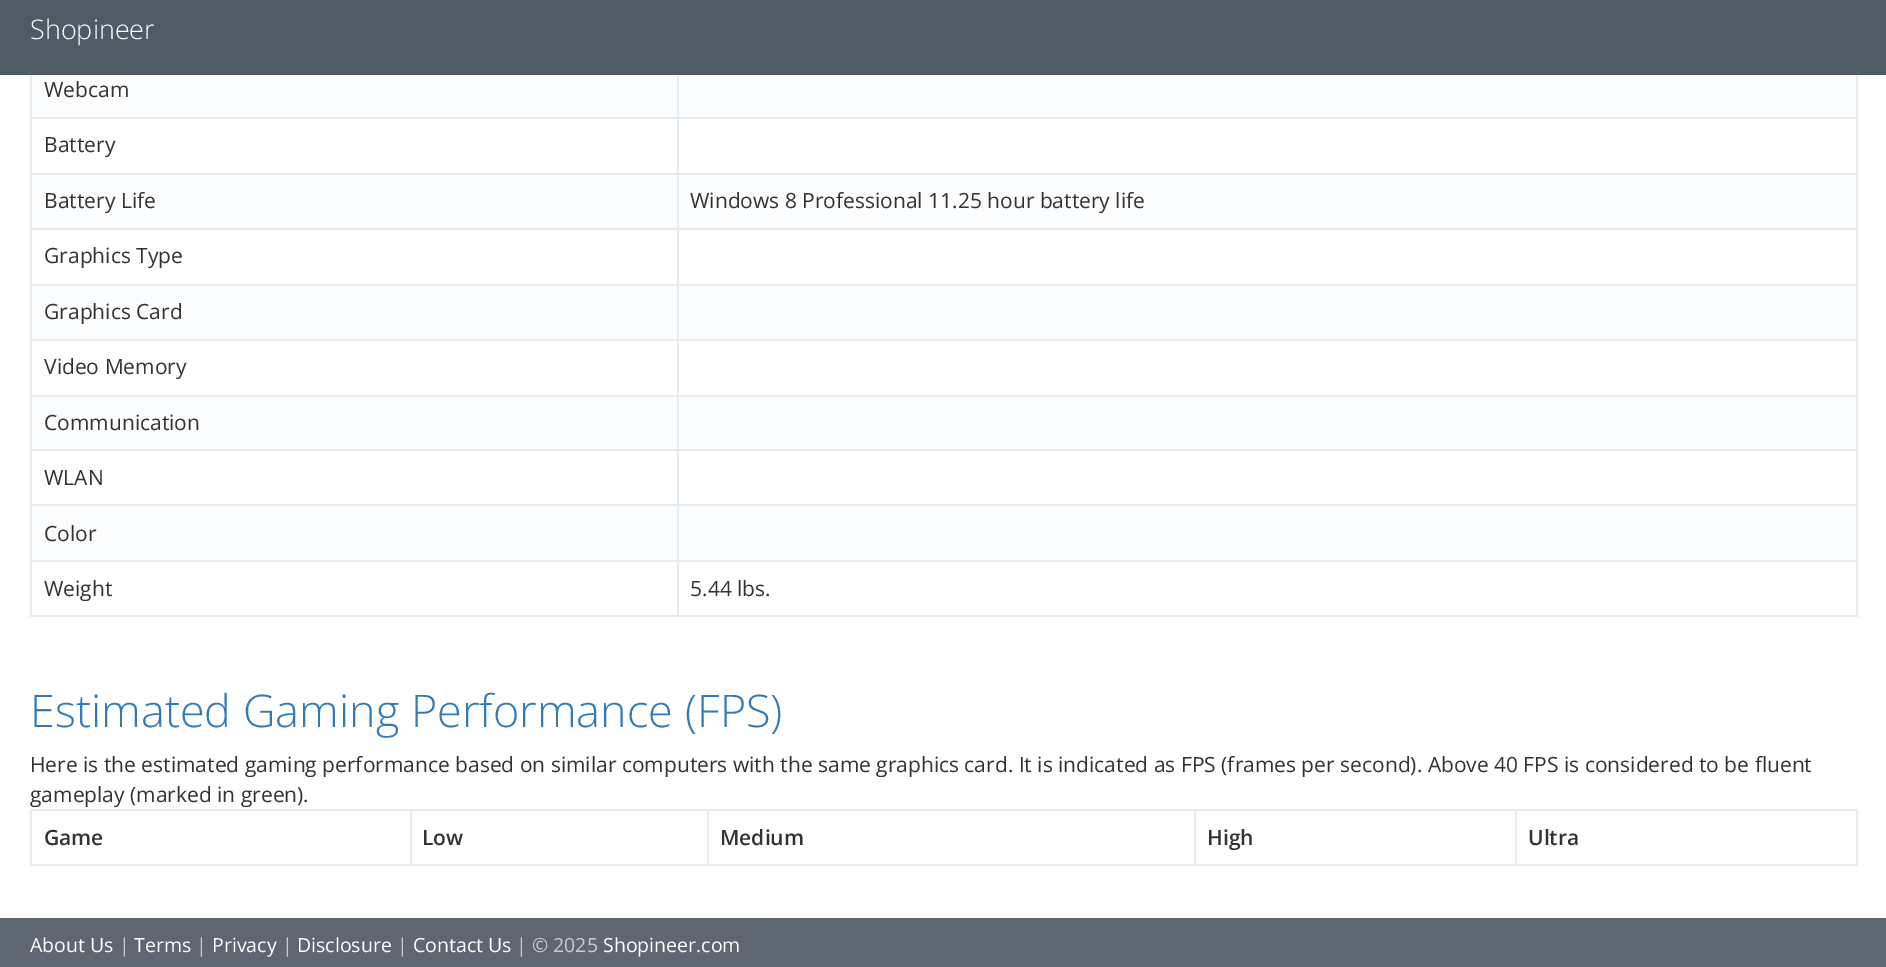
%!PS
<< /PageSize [1886 967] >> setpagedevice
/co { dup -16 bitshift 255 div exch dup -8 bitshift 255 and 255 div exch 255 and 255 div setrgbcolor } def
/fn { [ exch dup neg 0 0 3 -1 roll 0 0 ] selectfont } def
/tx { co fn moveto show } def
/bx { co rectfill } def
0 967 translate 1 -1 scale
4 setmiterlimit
0 0 1886 967 16#5E6672 bx
0 0 1886 75 16#4F5A67 bx
0 75 1886 843 16#FFFFFF bx
1856 75 2 542 16#E7ECF1 bx
30 615 1827 2 16#E7ECF1 bx
30 75 2 542 16#E7ECF1 bx
32 75 1824 42 16#FBFCFD bx
677 117 1180 2 16#E7ECF1 bx
677 173 1180 2 16#E7ECF1 bx
32 175 1824 53 16#FBFCFD bx
677 228 1180 2 16#E7ECF1 bx
677 284 1180 2 16#E7ECF1 bx
32 286 1824 53 16#FBFCFD bx
677 339 1180 2 16#E7ECF1 bx
677 395 1180 2 16#E7ECF1 bx
32 397 1824 52 16#FBFCFD bx
677 449 1180 2 16#E7ECF1 bx
677 504 1180 2 16#E7ECF1 bx
32 506 1824 54 16#FBFCFD bx
677 560 1180 2 16#E7ECF1 bx
677 560 2 57 16#E7ECF1 bx
30 560 648 2 16#E7ECF1 bx
677 504 2 57 16#E7ECF1 bx
30 504 648 2 16#E7ECF1 bx
677 449 2 57 16#E7ECF1 bx
30 449 648 2 16#E7ECF1 bx
677 395 2 55 16#E7ECF1 bx
30 395 648 2 16#E7ECF1 bx
677 339 2 57 16#E7ECF1 bx
30 339 648 2 16#E7ECF1 bx
677 284 2 57 16#E7ECF1 bx
30 284 648 2 16#E7ECF1 bx
677 228 2 57 16#E7ECF1 bx
30 228 648 2 16#E7ECF1 bx
677 173 2 57 16#E7ECF1 bx
30 173 648 2 16#E7ECF1 bx
677 117 2 57 16#E7ECF1 bx
30 117 648 2 16#E7ECF1 bx
677 75 2 44 16#E7ECF1 bx
30 809 1827 2 16#E7ECF1 bx
1856 809 2 57 16#E7ECF1 bx
30 864 1827 2 16#E7ECF1 bx
30 809 2 57 16#E7ECF1 bx
410 809 2 57 16#E7ECF1 bx
707 809 2 57 16#E7ECF1 bx
1194 809 2 57 16#E7ECF1 bx
1515 809 2 57 16#E7ECF1 bx
(Shopineer) 30 39 /OpenSans-Light 27 16#FFFFFF tx
(Webcam) 44 97 /OpenSans-Regular 21 16#333333 tx
(Battery) 44 152 /OpenSans-Regular 21 16#333333 tx
(Battery Life) 44 208 /OpenSans-Regular 21 16#333333 tx
(Windows 8 Professional 11.25 hour battery life) 690 208 /OpenSans-Regular 21 16#333333 tx
(Graphics Type) 44 263 /OpenSans-Regular 21 16#333333 tx
(Graphics Card) 44 319 /OpenSans-Regular 21 16#333333 tx
(Video Memory) 44 374 /OpenSans-Regular 21 16#333333 tx
(Communication) 44 430 /OpenSans-Regular 21 16#333333 tx
(WLAN) 44 485 /OpenSans-Regular 21 16#333333 tx
(Color) 44 541 /OpenSans-Regular 21 16#333333 tx
(Weight) 44 596 /OpenSans-Regular 21 16#333333 tx
(5.44 lbs.) 690 596 /OpenSans-Regular 21 16#333333 tx
(Estimated Gaming Performance \(FPS\)) 30 727 /OpenSans-Light 45 16#337AB7 tx
(Here is the estimated gaming performance based on similar computers with the same graphics card. It is indicated as FPS \(frames per second\). Above 40 FPS is considered to be fluent) 30 772 /OpenSans-Regular 21 16#333333 tx
(gameplay \(marked in green\).) 30 802 /OpenSans-Regular 21 16#333333 tx
(Game) 44 845 /OpenSans-SemiBold 21 16#333333 tx
(Low) 422 845 /OpenSans-SemiBold 21 16#333333 tx
(Medium) 720 845 /OpenSans-SemiBold 21 16#333333 tx
(High) 1207 845 /OpenSans-SemiBold 21 16#333333 tx
(Ultra) 1528 845 /OpenSans-SemiBold 21 16#333333 tx
(About Us) 30 952 /OpenSans-Regular 19.5 16#FFFFFF tx
(|) 119 952 /OpenSans-Regular 19.5 16#C9CDD3 tx
(Terms) 134 952 /OpenSans-Regular 19.5 16#FFFFFF tx
(|) 196 952 /OpenSans-Regular 19.5 16#C9CDD3 tx
(Privacy) 212 952 /OpenSans-Regular 19.5 16#FFFFFF tx
(|) 282 952 /OpenSans-Regular 19.5 16#C9CDD3 tx
(Disclosure) 297 952 /OpenSans-Regular 19.5 16#FFFFFF tx
(|) 397 952 /OpenSans-Regular 19.5 16#C9CDD3 tx
(Contact Us) 413 952 /OpenSans-Regular 19.5 16#FFFFFF tx
(| © 2025) 516 952 /OpenSans-Regular 19.5 16#C9CDD3 tx
(Shopineer.com) 603 952 /OpenSans-Regular 19.5 16#FFFFFF tx
showpage
